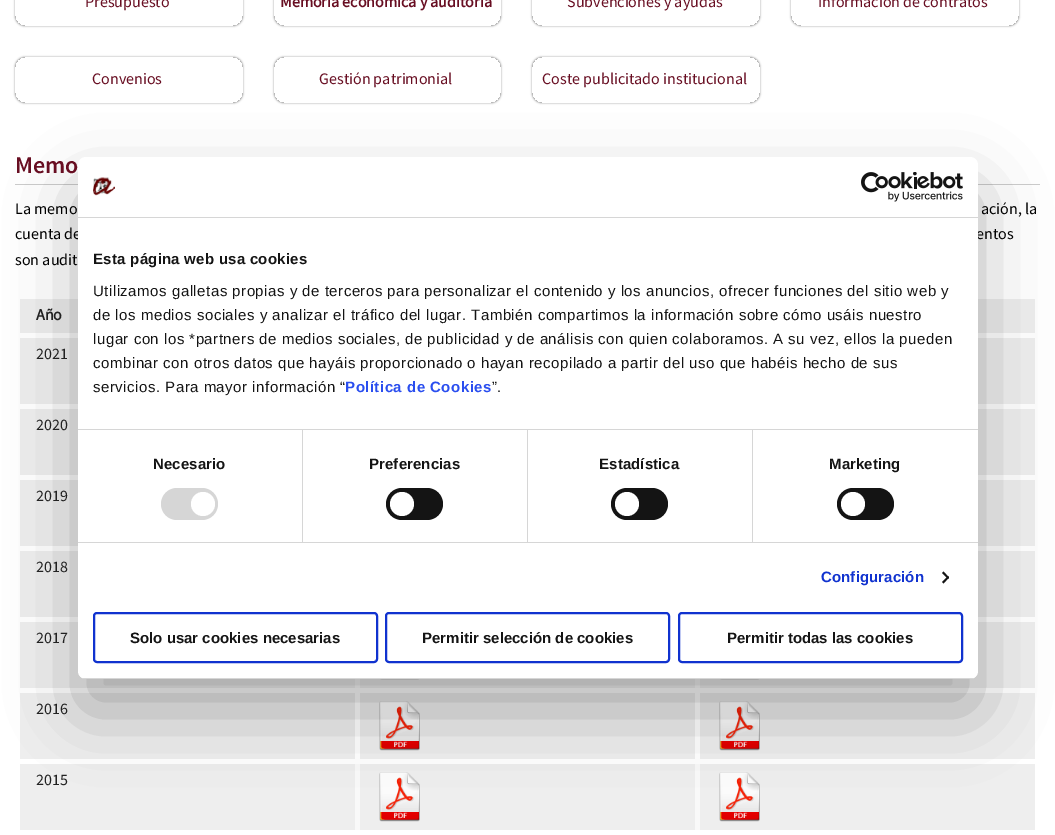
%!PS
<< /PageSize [1055 835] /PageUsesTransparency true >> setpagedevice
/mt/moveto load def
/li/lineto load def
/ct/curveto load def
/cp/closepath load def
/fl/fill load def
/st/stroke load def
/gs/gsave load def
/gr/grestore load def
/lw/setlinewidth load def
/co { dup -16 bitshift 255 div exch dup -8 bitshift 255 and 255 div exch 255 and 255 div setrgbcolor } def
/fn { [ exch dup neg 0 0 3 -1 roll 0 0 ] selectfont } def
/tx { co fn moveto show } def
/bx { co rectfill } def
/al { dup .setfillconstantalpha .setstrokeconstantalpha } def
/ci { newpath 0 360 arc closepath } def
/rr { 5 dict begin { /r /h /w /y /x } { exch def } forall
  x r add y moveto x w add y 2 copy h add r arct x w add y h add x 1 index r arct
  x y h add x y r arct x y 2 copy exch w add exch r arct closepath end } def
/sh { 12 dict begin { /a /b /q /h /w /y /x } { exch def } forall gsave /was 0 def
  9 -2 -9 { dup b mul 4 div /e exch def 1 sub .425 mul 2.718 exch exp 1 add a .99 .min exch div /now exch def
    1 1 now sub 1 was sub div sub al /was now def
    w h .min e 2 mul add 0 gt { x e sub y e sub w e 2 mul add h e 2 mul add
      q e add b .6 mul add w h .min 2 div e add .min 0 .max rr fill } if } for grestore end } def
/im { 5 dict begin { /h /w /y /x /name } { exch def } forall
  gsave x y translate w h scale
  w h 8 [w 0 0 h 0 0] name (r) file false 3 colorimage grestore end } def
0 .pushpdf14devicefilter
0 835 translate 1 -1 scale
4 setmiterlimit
0 0 1055 835 16#FFFFFF bx
gs
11 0 mt 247 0 li 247 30 li 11 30 li cp 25 -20 mt 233 -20 li 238.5 -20 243 -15.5 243 -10 ct 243 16 li 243 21.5 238.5 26 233 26 ct 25 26 li 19.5 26 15 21.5 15 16 ct 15 -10 li 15 -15.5 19.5 -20 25 -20 ct cp eoclip newpath
16#000000 co
15 -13 228 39 10 1 .4 sh
gr
gs
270 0 mt 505 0 li 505 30 li 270 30 li cp 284 -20 mt 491 -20 li 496.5 -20 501 -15.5 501 -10 ct 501 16 li 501 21.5 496.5 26 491 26 ct 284 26 li 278.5 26 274 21.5 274 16 ct 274 -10 li 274 -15.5 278.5 -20 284 -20 ct cp eoclip newpath
16#000000 co
274 -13 227 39 10 1 .4 sh
gr
gs
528 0 mt 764 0 li 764 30 li 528 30 li cp 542 -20 mt 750 -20 li 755.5 -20 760 -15.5 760 -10 ct 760 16 li 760 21.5 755.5 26 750 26 ct 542 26 li 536.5 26 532 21.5 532 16 ct 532 -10 li 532 -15.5 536.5 -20 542 -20 ct cp eoclip newpath
16#000000 co
532 -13 228 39 10 1 .4 sh
gr
gs
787 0 mt 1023 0 li 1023 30 li 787 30 li cp 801 -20 mt 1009 -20 li 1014.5 -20 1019 -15.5 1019 -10 ct 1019 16 li 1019 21.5 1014.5 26 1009 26 ct 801 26 li 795.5 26 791 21.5 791 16 ct 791 -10 li 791 -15.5 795.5 -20 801 -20 ct cp eoclip newpath
16#000000 co
791 -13 228 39 10 1 .4 sh
gr
gs
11 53 mt 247 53 li 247 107 li 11 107 li cp 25 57 mt 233 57 li 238.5 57 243 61.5 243 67 ct 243 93 li 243 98.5 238.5 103 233 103 ct 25 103 li 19.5 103 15 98.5 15 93 ct 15 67 li 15 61.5 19.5 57 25 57 ct cp eoclip newpath
16#000000 co
15 57 228 46 10 1 .4 sh
gr
gs
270 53 mt 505 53 li 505 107 li 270 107 li cp 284 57 mt 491 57 li 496.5 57 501 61.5 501 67 ct 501 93 li 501 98.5 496.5 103 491 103 ct 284 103 li 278.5 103 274 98.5 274 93 ct 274 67 li 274 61.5 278.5 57 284 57 ct cp eoclip newpath
16#000000 co
274 57 227 46 10 1 .4 sh
gr
gs
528 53 mt 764 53 li 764 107 li 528 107 li cp 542 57 mt 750 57 li 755.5 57 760 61.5 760 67 ct 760 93 li 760 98.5 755.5 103 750 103 ct 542 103 li 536.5 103 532 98.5 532 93 ct 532 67 li 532 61.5 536.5 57 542 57 ct cp eoclip newpath
16#000000 co
532 57 228 46 10 1 .4 sh
gr
15 184 1025 1 16#CCCCCC bx
20 299 58 34 16#EEEEEE bx
978 299 57 34 16#EEEEEE bx
20 338 58 66 16#EEEEEE bx
978 338 57 66 16#EEEEEE bx
20 409 58 66 16#EEEEEE bx
978 409 57 66 16#EEEEEE bx
20 480 58 66 16#EEEEEE bx
978 480 57 66 16#EEEEEE bx
20 551 58 66 16#EEEEEE bx
978 551 57 66 16#EEEEEE bx
355 679 345 9 16#F9F9F9 bx
20 622 335 66 16#EEEEEE bx
700 622 335 66 16#EEEEEE bx
(media/1.raw) 720 679 39 1 im
360 679 335 9 16#EEEEEE bx
(media/1.raw) 380 679 39 1 im
20 693 335 66 16#EEEEEE bx
360 693 335 66 16#EEEEEE bx
(media/2.raw) 379 701 41 50 im
700 693 335 66 16#EEEEEE bx
(media/3.raw) 719 701 41 50 im
355 764 345 66 16#F9F9F9 bx
20 764 335 66 16#EEEEEE bx
360 764 335 66 16#EEEEEE bx
(media/2.raw) 379 772 41 50 im
700 764 335 66 16#EEEEEE bx
(media/3.raw) 719 772 41 50 im
16#000000 co
78 189 900 522 8 34 .3 sh
(Presupuesto) 85 7 /SourceSansPro-Regular 16 16#680E22 tx
(Memoria económica y auditoría) 280 7 /SourceSansPro-Bold 16 16#680E22 tx
(Subvenciones y ayudas) 567 7 /SourceSansPro-Regular 16 16#680E22 tx
(Información de contratos) 818 7 /SourceSansPro-Regular 16 16#680E22 tx
(Convenios) 92 84 /SourceSansPro-Regular 16 16#680E22 tx
(Gestión patrimonial) 319 84 /SourceSansPro-Regular 16 16#680E22 tx
(Coste publicitado institucional) 542 84 /SourceSansPro-Regular 16 16#680E22 tx
(Memo) 15 173 /SourceSansPro-SemiBold 24 16#680E22 tx
(La memo) 15 214 /SourceSansPro-Regular 16 16#000000 tx
(ación, la) 981 214 /SourceSansPro-Regular 16 16#000000 tx
(cuenta de) 15 239 /SourceSansPro-Regular 16 16#000000 tx
(entos) 976 239 /SourceSansPro-Regular 16 16#000000 tx
(son audit) 15 265 /SourceSansPro-Regular 16 16#000000 tx
(Año) 36 320 /SourceSansPro-Bold 16 16#222222 tx
(2021) 36 359 /SourceSansPro-Regular 16 16#222222 tx
(2020) 36 430 /SourceSansPro-Regular 16 16#222222 tx
(2019) 36 501 /SourceSansPro-Regular 16 16#222222 tx
(2018) 36 572 /SourceSansPro-Regular 16 16#222222 tx
(2017) 36 643 /SourceSansPro-Regular 16 16#222222 tx
(2016) 36 714 /SourceSansPro-Regular 16 16#222222 tx
(2015) 36 785 /SourceSansPro-Regular 16 16#222222 tx
16#FFFFFF co
78 157 900 522 8 rr fl
78 217 900 1 16#D6D6D6 bx
(media/4.raw) 93 177 22 19 im
(media/5.raw) 861 172 102 30 im
78 429 900 1 16#D6D6D6 bx
/LiberationSans-Bold 15 fn
16#141414 co
93 264 mt .25 0 (Esta página web usa cookies) ashow
/LiberationSans-Regular 15 fn
93 296 mt .5 0 (Utilizamos galletas propias y de terceros para personalizar el contenido y los anuncios, ofrecer funciones del sitio web y) ashow
93 320 mt .5 0 (de los medios sociales y analizar el tráfico del lugar. También compartimos la información sobre cómo usáis nuestro) ashow
93 344 mt .5 0 (lugar con los *partners de medios sociales, de publicidad y de análisis con quien colaboramos. A su vez, ellos la pueden) ashow
93 368 mt .5 0 (combinar con otros datos que hayáis proporcionado o hayan recopilado a partir del uso que habéis hecho de sus) ashow
93 392 mt .5 0 (servicios. Para mayor información “) ashow
/LiberationSans-Bold 15 fn
16#2A4EEF co
345 392 mt .5 0 (Política de Cookies) ashow
/LiberationSans-Regular 15 fn
16#141414 co
492 392 mt .5 0 (”.) ashow
78 542 900 1 16#D6D6D6 bx
302 430 1 112 16#D6D6D6 bx
/LiberationSans-Bold 15 fn
16#141414 co
153 469 mt .1 0 (Necesario) ashow
16#D6D6D6 co
161 488 57 32 16 rr fl
16#FFFFFF co
203 504 12 ci fl
527 430 1 112 16#D6D6D6 bx
16#141414 co
369 469 mt .1 0 (Preferencias) ashow
386 488 57 32 16 rr fl
16#FFFFFF co
402 504 12 ci fl
752 430 1 112 16#D6D6D6 bx
16#141414 co
599 469 mt .1 0 (Estadística) ashow
611 488 57 32 16 rr fl
16#FFFFFF co
627 504 12 ci fl
16#141414 co
829 469 mt .1 0 (Marketing) ashow
837 488 57 32 16 rr fl
16#FFFFFF co
853 504 12 ci fl
16#1032CF co
821 582 mt .1 0 (Configuración) ashow
16#141414 co
943.5 571.5 mt 949 577.5 li 948 579 li 942 573 li cp fl
948 576 mt 949 577.5 li 943.5 583.5 li 942 582 li cp fl
gs
78 157 900 522 8 rr clip newpath
78 678 900 1 16#D6D6D6 bx
gr
16#1032CF co
2 lw
94 613 283 49 3 rr st
(Solo usar cookies necesarias) 130 643 /LiberationSans-Bold 15 16#141414 tx
16#1032CF co
386 613 283 49 3 rr st
(Permitir selección de cookies) 422 643 /LiberationSans-Bold 15 16#141414 tx
16#1032CF co
679 613 283 49 3 rr st
(Permitir todas las cookies) 727 643 /LiberationSans-Bold 15 16#141414 tx
.poppdf14devicefilter showpage
